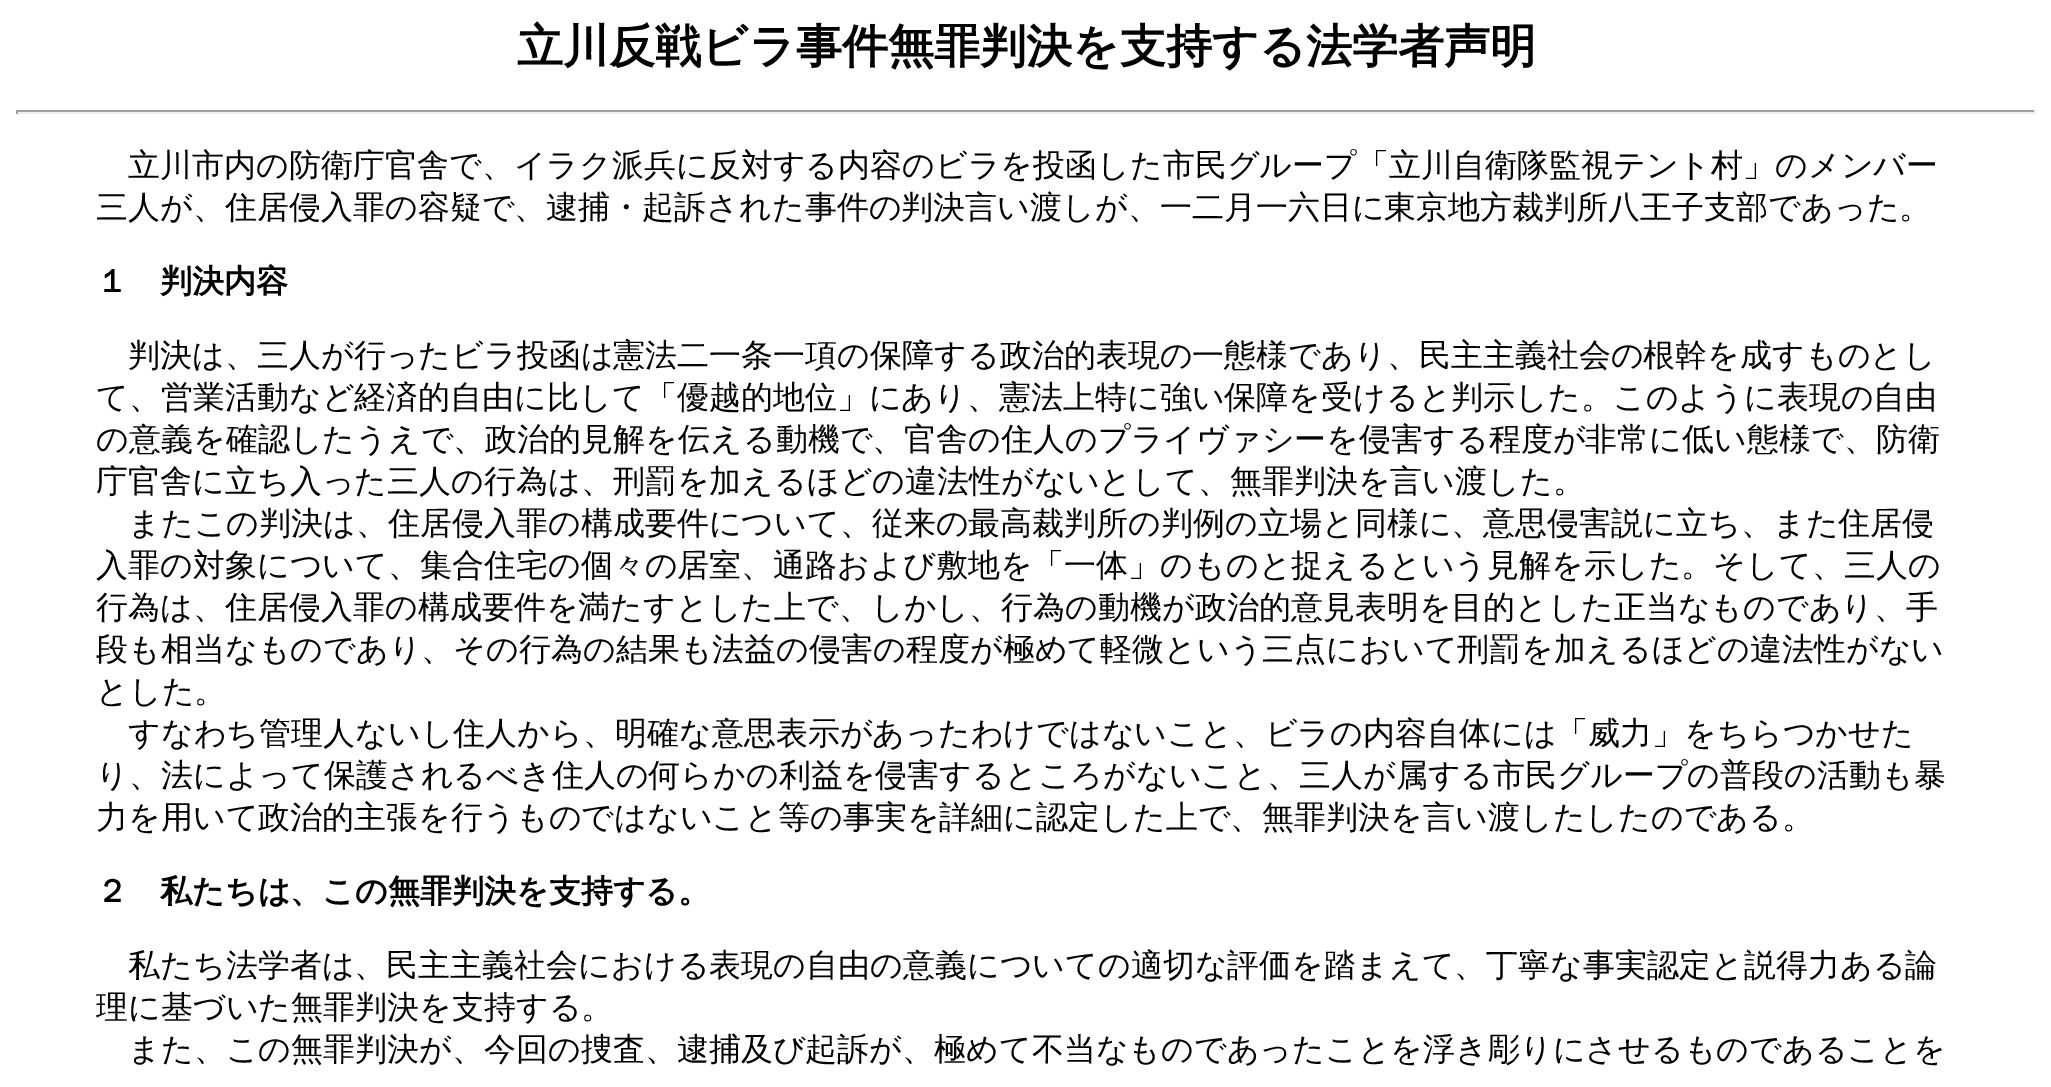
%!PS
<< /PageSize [2051 1087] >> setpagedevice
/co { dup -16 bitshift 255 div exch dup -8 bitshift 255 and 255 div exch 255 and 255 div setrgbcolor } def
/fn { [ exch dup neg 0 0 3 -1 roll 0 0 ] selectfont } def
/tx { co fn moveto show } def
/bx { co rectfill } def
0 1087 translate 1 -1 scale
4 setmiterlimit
0 0 2051 1087 16#FFFFFF bx
16 110 2020 2 16#9F9F9F bx
2034 110 2 4 16#EEEEEE bx
16 112 2020 2 16#EEEEEE bx
16 110 2 4 16#9F9F9F bx
(立川反戦ビラ事件無罪判決を支持する法学者声明) 517 62 /WenQuanYiZenHei-Bold 46.1 16#000000 tx
(立川市内の防衛庁官舎で、イラク派兵に反対する内容のビラを投函した市民グループ「立川自衛隊監視テント村」のメンバー) 128 176 /WenQuanYiZenHei-Medium 32 16#000000 tx
(三人が、住居侵入罪の容疑で、逮捕・起訴された事件の判決言い渡しが、一二月一六日に東京地方裁判所八王子支部であった。) 96 218 /WenQuanYiZenHei-Medium 32 16#000000 tx
(１　判決内容) 96 292 /WenQuanYiZenHei-Bold 32 16#000000 tx
(判決は、三人が行ったビラ投函は憲法二一条一項の保障する政治的表現の一態様であり、民主主義社会の根幹を成すものとし) 128 366 /WenQuanYiZenHei-Medium 32 16#000000 tx
(て、営業活動など経済的自由に比して「優越的地位」にあり、憲法上特に強い保障を受けると判示した。このように表現の自由) 96 408 /WenQuanYiZenHei-Medium 32 16#000000 tx
(の意義を確認したうえで、政治的見解を伝える動機で、官舎の住人のプライヴァシーを侵害する程度が非常に低い態様で、防衛) 96 450 /WenQuanYiZenHei-Medium 32 16#000000 tx
(庁官舎に立ち入った三人の行為は、刑罰を加えるほどの違法性がないとして、無罪判決を言い渡した。) 96 492 /WenQuanYiZenHei-Medium 32 16#000000 tx
(またこの判決は、住居侵入罪の構成要件について、従来の最高裁判所の判例の立場と同様に、意思侵害説に立ち、また住居侵) 128 534 /WenQuanYiZenHei-Medium 32 16#000000 tx
(入罪の対象について、集合住宅の個々の居室、通路および敷地を「一体」のものと捉えるという見解を示した。そして、三人の) 96 576 /WenQuanYiZenHei-Medium 32 16#000000 tx
(行為は、住居侵入罪の構成要件を満たすとした上で、しかし、行為の動機が政治的意見表明を目的とした正当なものであり、手) 96 618 /WenQuanYiZenHei-Medium 32 16#000000 tx
(段も相当なものであり、その行為の結果も法益の侵害の程度が極めて軽微という三点において刑罰を加えるほどの違法性がない) 96 660 /WenQuanYiZenHei-Medium 32 16#000000 tx
(とした。) 96 702 /WenQuanYiZenHei-Medium 32 16#000000 tx
(すなわち管理人ないし住人から、明確な意思表示があったわけではないこと、ビラの内容自体には「威力」をちらつかせた) 128 744 /WenQuanYiZenHei-Medium 32 16#000000 tx
(り、法によって保護されるべき住人の何らかの利益を侵害するところがないこと、三人が属する市民グループの普段の活動も暴) 96 786 /WenQuanYiZenHei-Medium 32 16#000000 tx
(力を用いて政治的主張を行うものではないこと等の事実を詳細に認定した上で、無罪判決を言い渡したしたのである。) 96 828 /WenQuanYiZenHei-Medium 32 16#000000 tx
(２　私たちは、この無罪判決を支持する。) 96 902 /WenQuanYiZenHei-Bold 32 16#000000 tx
(私たち法学者は、民主主義社会における表現の自由の意義についての適切な評価を踏まえて、丁寧な事実認定と説得力ある論) 128 976 /WenQuanYiZenHei-Medium 32 16#000000 tx
(理に基づいた無罪判決を支持する。) 96 1018 /WenQuanYiZenHei-Medium 32 16#000000 tx
(また、この無罪判決が、今回の捜査、逮捕及び起訴が、極めて不当なものであったことを浮き彫りにさせるものであることを) 128 1060 /WenQuanYiZenHei-Medium 32 16#000000 tx
showpage
